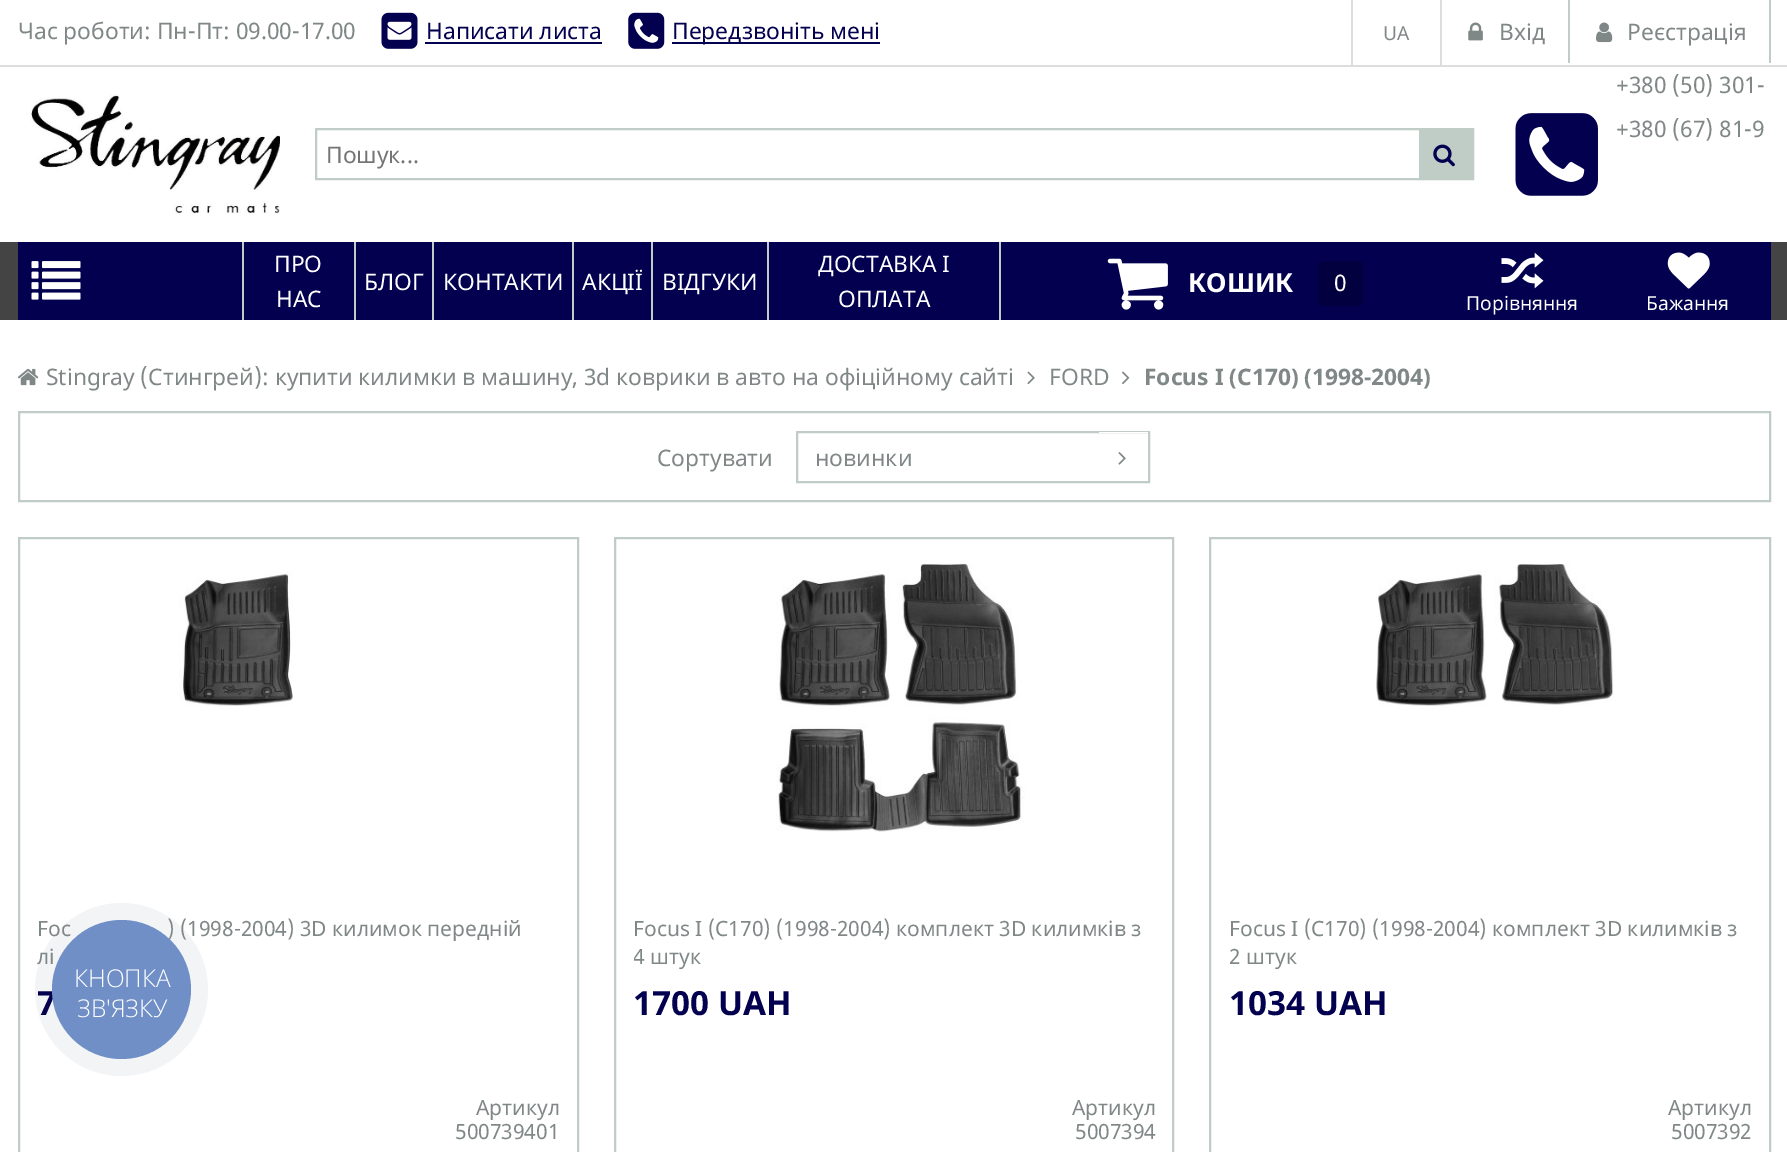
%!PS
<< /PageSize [1787 1152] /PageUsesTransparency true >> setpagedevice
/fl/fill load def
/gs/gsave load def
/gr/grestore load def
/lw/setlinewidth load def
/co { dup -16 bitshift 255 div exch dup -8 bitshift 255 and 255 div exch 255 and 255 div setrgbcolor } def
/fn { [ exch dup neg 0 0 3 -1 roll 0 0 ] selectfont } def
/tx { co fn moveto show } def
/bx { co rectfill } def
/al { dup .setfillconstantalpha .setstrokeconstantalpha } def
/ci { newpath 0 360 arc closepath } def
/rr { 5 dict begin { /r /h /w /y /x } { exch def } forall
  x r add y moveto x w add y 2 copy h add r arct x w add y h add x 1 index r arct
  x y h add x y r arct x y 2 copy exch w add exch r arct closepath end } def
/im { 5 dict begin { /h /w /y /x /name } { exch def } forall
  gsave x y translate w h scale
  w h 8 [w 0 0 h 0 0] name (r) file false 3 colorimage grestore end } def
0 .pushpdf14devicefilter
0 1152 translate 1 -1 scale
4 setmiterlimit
0 0 1787 1152 16#FFFFFF bx
0 65 1787 2 16#DDDDDD bx
(media/1.raw) 381 12 37 37 im
425 42 177 2 16#03004F bx
(media/2.raw) 628 12 37 37 im
672 42 208 2 16#03004F bx
1440 0 2 65 16#DDDDDD bx
1351 0 2 65 16#DDDDDD bx
1568 0 2 63 16#C0CCC6 bx
(media/3.raw) 1468 22 15 19 im
1769 0 2 63 16#C0CCC6 bx
(media/4.raw) 1596 22 17 21 im
(media/5.raw) 31 94 249 120 im
2 lw
316 129 1157 50 rectstroke
1419 130 53 48 16#C0CCC6 bx
(media/6.raw) 1433 144 22 23 im
(media/7.raw) 1515 113 83 83 im
0 242 1787 78 16#444444 bx
18 242 1753 78 16#03004F bx
(media/8.raw) 31 261 50 39 im
354 242 2 78 16#C0CCC6 bx
242 242 2 78 16#C0CCC6 bx
432 242 2 78 16#C0CCC6 bx
572 242 2 78 16#C0CCC6 bx
651 242 2 78 16#C0CCC6 bx
767 242 2 78 16#C0CCC6 bx
999 242 2 78 16#C0CCC6 bx
(media/9.raw) 1107 258 61 52 im
16#02003F co
1318 261 45 45 5 rr fl
(media/10.raw) 1501 252 43 37 im
(media/11.raw) 1667 252 43 37 im
(media/12.raw) 17 368 22 18 im
(media/13.raw) 1027 371 8 14 im
(media/14.raw) 1122 371 8 14 im
16#C0CCC6 co
19 412 1751 89 rectstroke
797 432 352 50 rectstroke
1099 432 49 1 16#FFFFFF bx
(media/15.raw) 1118 452 8 13 im
16#C0CCC6 co
19 538 559 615 rectstroke
(media/16.raw) 179 571 114 135 im
615 538 558 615 rectstroke
(media/17.raw) 776 563 249 269 im
1210 538 560 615 rectstroke
(media/18.raw) 1376 563 239 143 im
0.06 al
16#2A405D co
121.5 989.5 86.5 ci fl
1 al
(Час роботи: Пн-Пт: 09.00-17.00) 18 39 /NotoSans-Regular 22.75 16#808787 tx
(Написати листа) 426 39 /NotoSans-Regular 22.75 16#03004F tx
(Передзвоніть мені) 672 39 /NotoSans-Regular 22.75 16#03004F tx
(UA) 1383 40 /NotoSans-Regular 19.25 16#808787 tx
(Вхід) 1499 40 /NotoSans-Regular 22.75 16#808787 tx
(Реєстрація) 1627 40 /NotoSans-Regular 22.75 16#808787 tx
(Пошук...) 326 163 /NotoSans-Regular 22.75 16#757575 tx
(+380 \(50\) 301-) 1616 93 /NotoSans-Regular 22.75 16#808787 tx
(+380 \(67\) 81-9) 1616 137 /NotoSans-Regular 22.75 16#808787 tx
(ПРО) 274 272 /NotoSans-Regular 22.75 16#FFFFFF tx
(НАС) 276 307 /NotoSans-Regular 22.75 16#FFFFFF tx
(БЛОГ) 364 290 /NotoSans-Regular 22.75 16#FFFFFF tx
(КОНТАКТИ) 443 290 /NotoSans-Regular 22.75 16#FFFFFF tx
(АКЦІЇ) 582 290 /NotoSans-Regular 22.75 16#FFFFFF tx
(ВІДГУКИ) 662 290 /NotoSans-Regular 22.75 16#FFFFFF tx
(ДОСТАВКА І) 818 272 /NotoSans-Regular 22.75 16#FFFFFF tx
(ОПЛАТА) 838 307 /NotoSans-Regular 22.75 16#FFFFFF tx
(КОШИК) 1188 292 /NotoSans-Bold 26.25 16#FFFFFF tx
(0) 1334 291 /NotoSans-Regular 22.75 16#FFFFFF tx
(Порівняння) 1466 310 /NotoSans-Regular 19.25 16#FFFFFF tx
(Бажання) 1646 310 /NotoSans-Regular 19.25 16#FFFFFF tx
(Stingray \(Стингрей\): купити килимки в машину, 3d коврики в авто на офіційному сайті) 46 385 /NotoSans-Regular 22.75 16#808787 tx
(FORD) 1049 385 /NotoSans-Regular 22.75 16#808787 tx
(Focus I \(C170\) \(1998-2004\)) 1144 385 /NotoSans-Bold 22.75 16#808787 tx
(Сортувати) 657 466 /NotoSans-Regular 22.75 16#808787 tx
(новинки) 815 466 /NotoSans-Regular 22.75 16#808787 tx
(Foc) 37 936 /NotoSans-Regular 21 16#808787 tx
(\) \(1998-2004\) 3D килимок передній) 167 936 /NotoSans-Regular 21 16#808787 tx
(лі) 37 964 /NotoSans-Regular 21 16#808787 tx
(7) 37 1015 /NotoSans-Bold 33.25 16#03004F tx
(Артикул) 476 1115 /NotoSans-Regular 21 16#808787 tx
(500739401) 455 1139 /NotoSans-Regular 21 16#808787 tx
(Focus I \(C170\) \(1998-2004\) комплект 3D килимків з) 633 936 /NotoSans-Regular 21 16#808787 tx
gs
634 915 521 56 rectclip
(4 штук) 633 964 /NotoSans-Regular 21 16#808787 tx
gr
(1700 UAH) 633 1015 /NotoSans-Bold 33.25 16#03004F tx
(Артикул) 1072 1115 /NotoSans-Regular 21 16#808787 tx
(5007394) 1075 1139 /NotoSans-Regular 21 16#808787 tx
(Focus I \(C170\) \(1998-2004\) комплект 3D килимків з) 1229 936 /NotoSans-Regular 21 16#808787 tx
(2 штук) 1229 964 /NotoSans-Regular 21 16#808787 tx
(1034 UAH) 1229 1015 /NotoSans-Bold 33.25 16#03004F tx
(Артикул) 1668 1115 /NotoSans-Regular 21 16#808787 tx
(5007392) 1671 1139 /NotoSans-Regular 21 16#808787 tx
16#708FC6 co
121.5 989.5 69.5 ci fl
(КНОПКА) 74 987 /OpenSans-Light 24.5 16#FFFFFF tx
(ЗВ'ЯЗКУ) 77 1017 /OpenSans-Light 24.5 16#FFFFFF tx
.poppdf14devicefilter showpage
